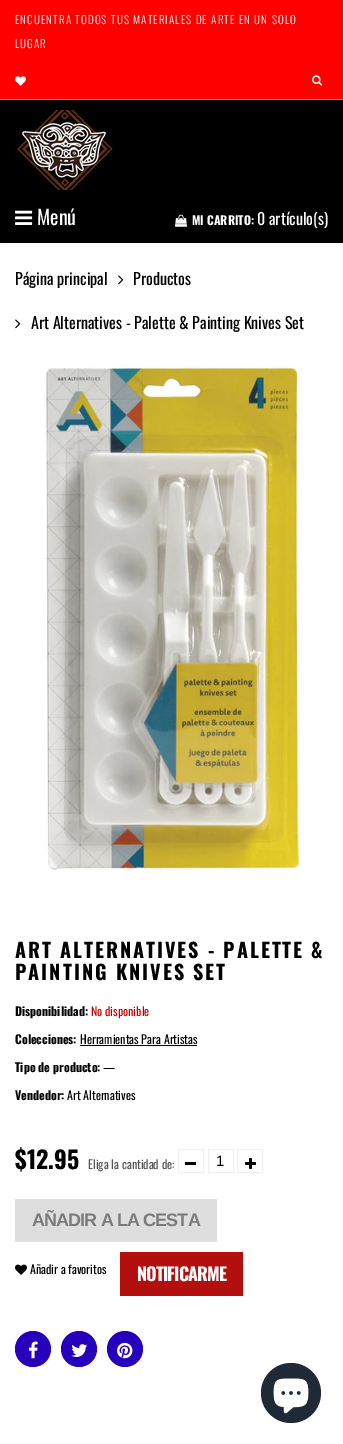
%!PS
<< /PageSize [343 1444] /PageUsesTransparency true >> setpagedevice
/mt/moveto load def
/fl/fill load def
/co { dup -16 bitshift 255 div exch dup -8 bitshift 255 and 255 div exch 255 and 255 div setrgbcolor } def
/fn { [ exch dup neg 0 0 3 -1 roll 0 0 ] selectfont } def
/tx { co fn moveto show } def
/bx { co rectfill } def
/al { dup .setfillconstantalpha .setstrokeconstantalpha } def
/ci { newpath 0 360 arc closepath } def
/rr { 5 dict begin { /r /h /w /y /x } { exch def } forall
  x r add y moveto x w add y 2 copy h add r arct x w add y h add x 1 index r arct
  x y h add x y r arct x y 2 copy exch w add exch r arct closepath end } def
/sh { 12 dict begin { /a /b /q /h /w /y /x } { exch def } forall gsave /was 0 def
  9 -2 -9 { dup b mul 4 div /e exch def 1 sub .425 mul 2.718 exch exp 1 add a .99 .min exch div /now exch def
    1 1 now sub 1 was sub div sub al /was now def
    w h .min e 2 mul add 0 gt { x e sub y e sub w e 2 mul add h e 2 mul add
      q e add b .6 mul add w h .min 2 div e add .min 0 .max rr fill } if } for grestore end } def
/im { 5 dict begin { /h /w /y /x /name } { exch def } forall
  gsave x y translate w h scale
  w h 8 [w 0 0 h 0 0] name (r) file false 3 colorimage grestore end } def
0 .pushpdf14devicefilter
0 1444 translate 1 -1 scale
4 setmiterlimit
0 0 343 1444 16#FFFFFF bx
16#000000 co
0 0 343 243 0 2.5 .05 sh
0 0 343 99 16#FF0000 bx
0 99 343 1 16#FA6060 bx
(media/1.raw) 15 76 11 10 im
(media/2.raw) 312 75 11 11 im
0 100 343 143 16#000000 bx
(media/3.raw) 15 110 99 80 im
(media/4.raw) 15 210 18 15 im
(media/5.raw) 175 214 12 13 im
(media/6.raw) 118 275 6 10 im
(media/6.raw) 15 319 6 10 im
(media/7.raw) 44 364 256 514 im
80 1045 117 1 16#000000 bx
16#F2EFEF co
178.5 1149.5 25 23 rectstroke
185 1162 11 3 16#000000 bx
16#F2EFEF co
208.5 1149.5 25 23 rectstroke
237.5 1149.5 25 23 rectstroke
(media/8.raw) 245 1158 11 11 im
15 1199 202 43 16#DEDEDE bx
(media/9.raw) 15 1264 12 11 im
120 1252 123 44 16#B40F0F bx
16#2700BD co
33 1349 18 ci fl
(media/10.raw) 28 1341 10 18 im
79 1349 18 ci fl
(media/11.raw) 71 1344 17 13 im
125 1349 18 ci fl
(media/12.raw) 117 1342 16 17 im
16#202A36 co
291 1393 30 ci fl
(media/13.raw) 273 1378 36 36 im
/Oswald-Light 11 fn
16#FFFFFF co
15 24 mt 1.1 0 (ENCUENTRA TODOS TUS MATERIALES DE ARTE EN UN SOLO) ashow
15 48 mt 1.1 0 (LUGAR) ashow
(Menú) 37 225 /Oswald-Regular 20 16#FFFFFF tx
(MI CARRITO:) 192 225 /Oswald-Bold 12 16#FFFFFF tx
(0 artículo\(s\)) 257 225 /Oswald-Regular 16 16#FFFFFF tx
(Página principal) 15 285 /Oswald-Regular 16 16#000000 tx
(Productos) 133 285 /Oswald-Regular 16 16#000000 tx
(Art Alternatives - Palette & Painting Knives Set) 31 329 /Oswald-Regular 16 16#000000 tx
/Oswald-Bold 20 fn
15 958 mt 2 0 (ART ALTERNATIVES - PALETTE &) ashow
15 980 mt 2 0 (PAINTING KNIVES SET) ashow
(Disponibilidad:) 15 1016 /Oswald-Bold 12 16#000000 tx
(No disponible) 91 1016 /Oswald-Regular 12 16#CA0000 tx
(Colecciones:) 15 1044 /Oswald-Bold 12 16#000000 tx
(Herramientas Para Artistas) 80 1044 /Oswald-Regular 12 16#000000 tx
(Tipo de producto:) 15 1072 /Oswald-Bold 12 16#000000 tx
(—) 103 1072 /Oswald-Regular 12 16#000000 tx
(Vendedor:) 15 1100 /Oswald-Bold 12 16#000000 tx
(Art Alternatives) 67 1100 /Oswald-Regular 12 16#000000 tx
($12.95) 15 1169 /Oswald-Bold 24 16#000000 tx
(Eliga la cantidad de:) 88 1169 /Oswald-Regular 12 16#555555 tx
(1) 216 1166 /LiberationSans-Regular 15 16#000000 tx
/LiberationSans-Bold 18 fn
16#7A7A7A co
32 1226 mt -.9 0 (AÑADIR A LA CESTA) ashow
(Añadir a favoritos) 30 1274 /Oswald-Regular 12 16#000000 tx
/Oswald-Bold 18 fn
16#FFFFFF co
137 1281 mt -.9 0 (NOTIFICARME) ashow
.poppdf14devicefilter showpage
